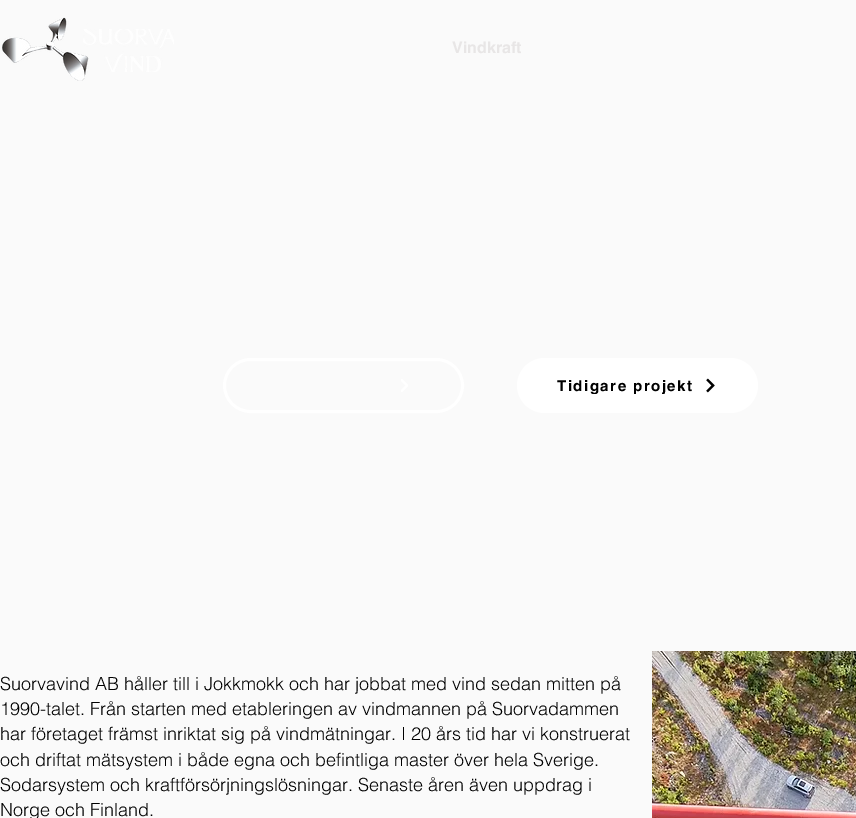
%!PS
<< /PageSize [856 818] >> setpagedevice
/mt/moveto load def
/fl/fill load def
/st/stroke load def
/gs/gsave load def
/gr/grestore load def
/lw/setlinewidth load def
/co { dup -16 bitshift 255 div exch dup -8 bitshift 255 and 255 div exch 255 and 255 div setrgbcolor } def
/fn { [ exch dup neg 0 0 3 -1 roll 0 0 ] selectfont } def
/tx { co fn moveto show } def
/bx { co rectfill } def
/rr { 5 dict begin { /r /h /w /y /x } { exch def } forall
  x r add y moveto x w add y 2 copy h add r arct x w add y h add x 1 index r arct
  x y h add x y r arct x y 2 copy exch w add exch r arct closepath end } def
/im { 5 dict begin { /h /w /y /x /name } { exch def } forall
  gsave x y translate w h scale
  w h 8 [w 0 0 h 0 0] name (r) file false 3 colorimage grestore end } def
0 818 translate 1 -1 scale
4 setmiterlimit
0 0 856 818 16#FAFAFA bx
(media/1.raw) 2 17 87 64 im
(media/2.raw) 83 29 91 43 im
16#FFFFFF co
3 lw
224.5 359.5 238 52 26 rr st
(media/3.raw) 401 379 7 13 im
517 358 241 55 27.5 rr fl
(media/4.raw) 706 378 9 15 im
(media/5.raw) 652 651 204 167 im
(Vindkraft) 452 53 /helvetica-Bold 16 16#E8E6E6 tx
gs
557 377 136 17 rectclip
/helvetica-Bold 15 fn
16#000000 co
557 391 mt 1.5 0 (Tidigare projekt) ashow
gr
(Suorvavind AB håller till i Jokkmokk och har jobbat med vind sedan mitten på) 0 690 /helvetica-Light 18 16#000000 tx
(1990-talet. Från starten med etableringen av vindmannen på Suorvadammen) 0 715 /helvetica-Light 18 16#000000 tx
(har företaget främst inriktat sig på vindmätningar. I 20 års tid har vi konstruerat) 0 740 /helvetica-Light 18 16#000000 tx
(och driftat mätsystem i både egna och befintliga master över hela Sverige.) 0 766 /helvetica-Light 18 16#000000 tx
(Sodarsystem och kraftförsörjningslösningar. Senaste åren även uppdrag i) 0 791 /helvetica-Light 18 16#000000 tx
(Norge och Finland.) 0 816 /helvetica-Light 18 16#000000 tx
showpage
